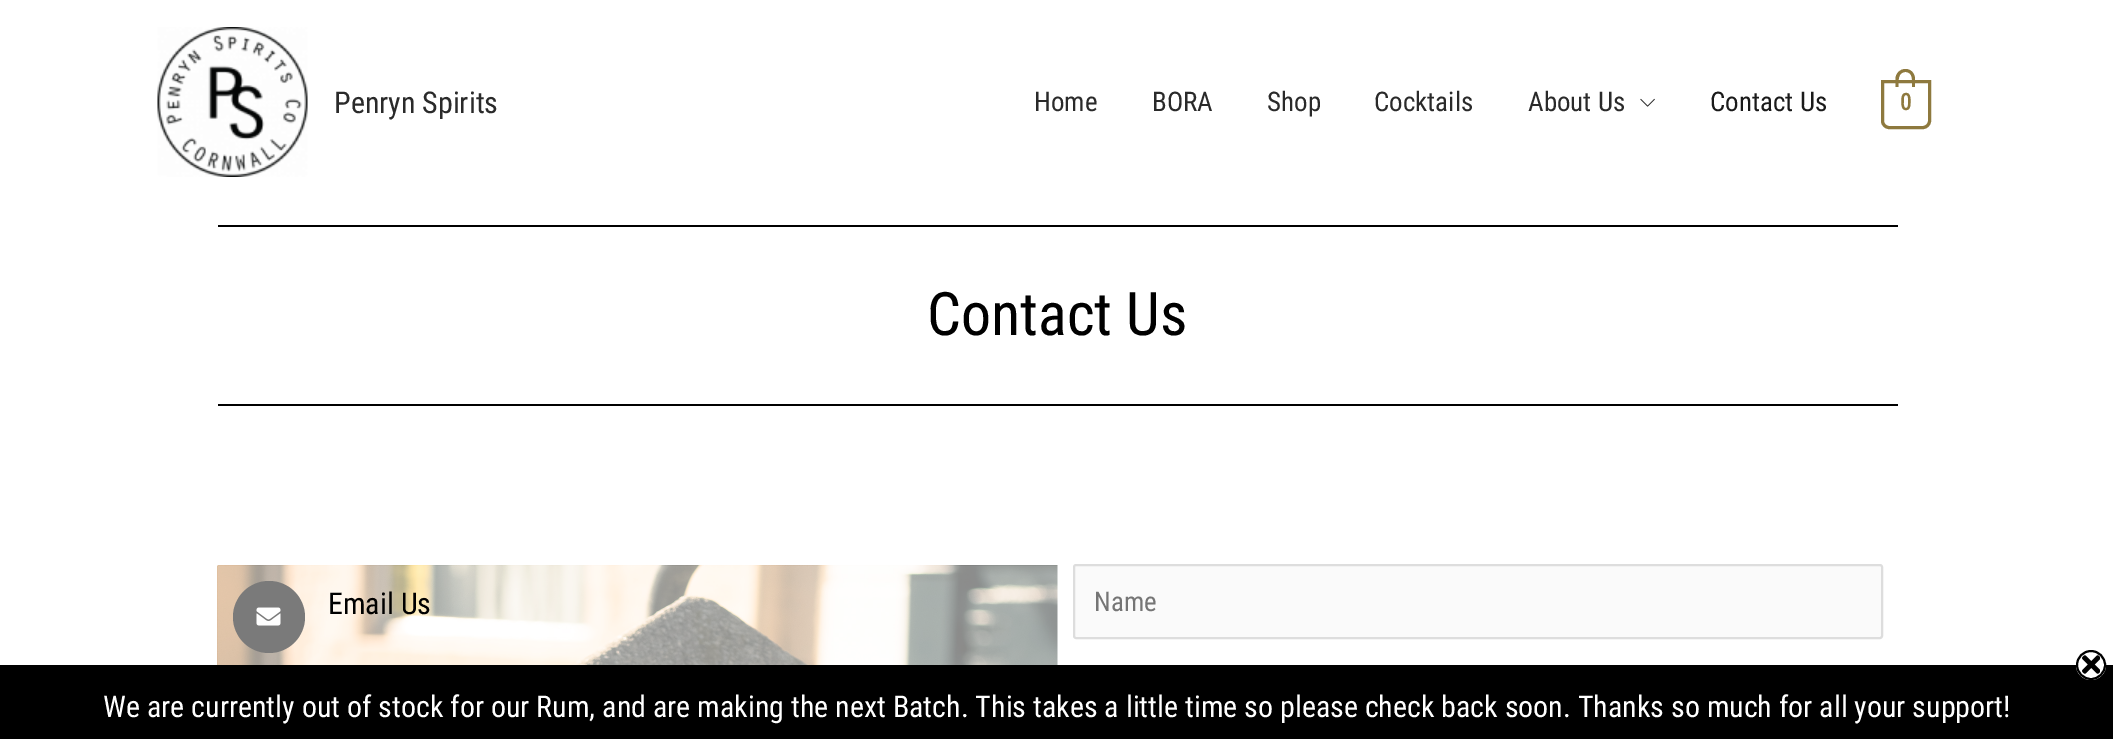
%!PS
<< /PageSize [2113 739] >> setpagedevice
/mt/moveto load def
/li/lineto load def
/ct/curveto load def
/cp/closepath load def
/fl/fill load def
/st/stroke load def
/gs/gsave load def
/gr/grestore load def
/lw/setlinewidth load def
/co { dup -16 bitshift 255 div exch dup -8 bitshift 255 and 255 div exch 255 and 255 div setrgbcolor } def
/fn { [ exch dup neg 0 0 3 -1 roll 0 0 ] selectfont } def
/tx { co fn moveto show } def
/bx { co rectfill } def
/ci { newpath 0 360 arc closepath } def
/rr { 5 dict begin { /r /h /w /y /x } { exch def } forall
  x r add y moveto x w add y 2 copy h add r arct x w add y h add x 1 index r arct
  x y h add x y r arct x y 2 copy exch w add exch r arct closepath end } def
/im { 5 dict begin { /h /w /y /x /name } { exch def } forall
  gsave x y translate w h scale
  w h 8 [w 0 0 h 0 0] name (r) file false 3 colorimage grestore end } def
0 739 translate 1 -1 scale
4 setmiterlimit
0 0 2113 739 16#FFFFFF bx
(media/1.raw) 157 27 151 150 im
(media/2.raw) 1640 98 15 9 im
16#8E793E co
3 lw
1882.5 81.5 mt 1929.5 81.5 li 1929.5 121 li 1929.5 124.5 1926.5 127.5 1923 127.5 ct 1889 127.5 li 1885.5 127.5 1882.5 124.5 1882.5 121 ct cp st
1905.5 69 mt 1911 69 1915 73.5 1915 79 ct 1915 87 li 1895.5 87 li 1895.5 79 li 1895.5 73.5 1900 69 1905.5 69 ct cp 1905.5 72 mt 1913.5 72 1912 81.5 1912 87 ct 1898.5 87 li 1898.5 81.5 1897.5 72 1905.5 72 ct cp eofill
218 225 1680 2 16#000000 bx
218 404 1680 2 16#000000 bx
(media/3.raw) 217 565 841 100 im
16#7A7A7A co
269 617 36 ci fl
(media/4.raw) 256 607 25 19 im
16#FAFAFA co
1074 565 808 73 2 rr gs fl gr
16#DDDDDD co
2 lw
st
0 665 2113 74 16#000000 bx
16#FFFFFF co
2091 665 15 ci fl
(media/5.raw) 2082 655 18 19 im
16#000000 co
2091 665 14 ci st
(Penryn Spirits) 334 113 /RobotoCondensed-Regular 30 16#2A2A2A tx
(Home) 1034 111 /RobotoCondensed-Regular 27 16#2A2A2A tx
(BORA) 1152 111 /RobotoCondensed-Regular 27 16#2A2A2A tx
(Shop) 1267 111 /RobotoCondensed-Regular 27 16#2A2A2A tx
(Cocktails) 1374 111 /RobotoCondensed-Regular 27 16#2A2A2A tx
(About Us) 1528 111 /RobotoCondensed-Regular 27 16#2A2A2A tx
(Contact Us) 1710 111 /RobotoCondensed-Regular 27 16#1A1A1A tx
(0) 1900 110 /RobotoCondensed-Bold 23 16#8E793E tx
(Contact Us) 927 335 /RobotoCondensed-Regular 60 16#000000 tx
(Email Us) 328 614 /RobotoCondensed-Regular 30 16#000000 tx
(Name) 1094 611 /RobotoCondensed-Regular 27 16#757575 tx
(We are currently out of stock for our Rum, and are making the next Batch. This takes a little time so please check back soon. Thanks so much for all your support!) 103 717 /RobotoCondensed-Regular 30 16#FFFFFF tx
showpage
